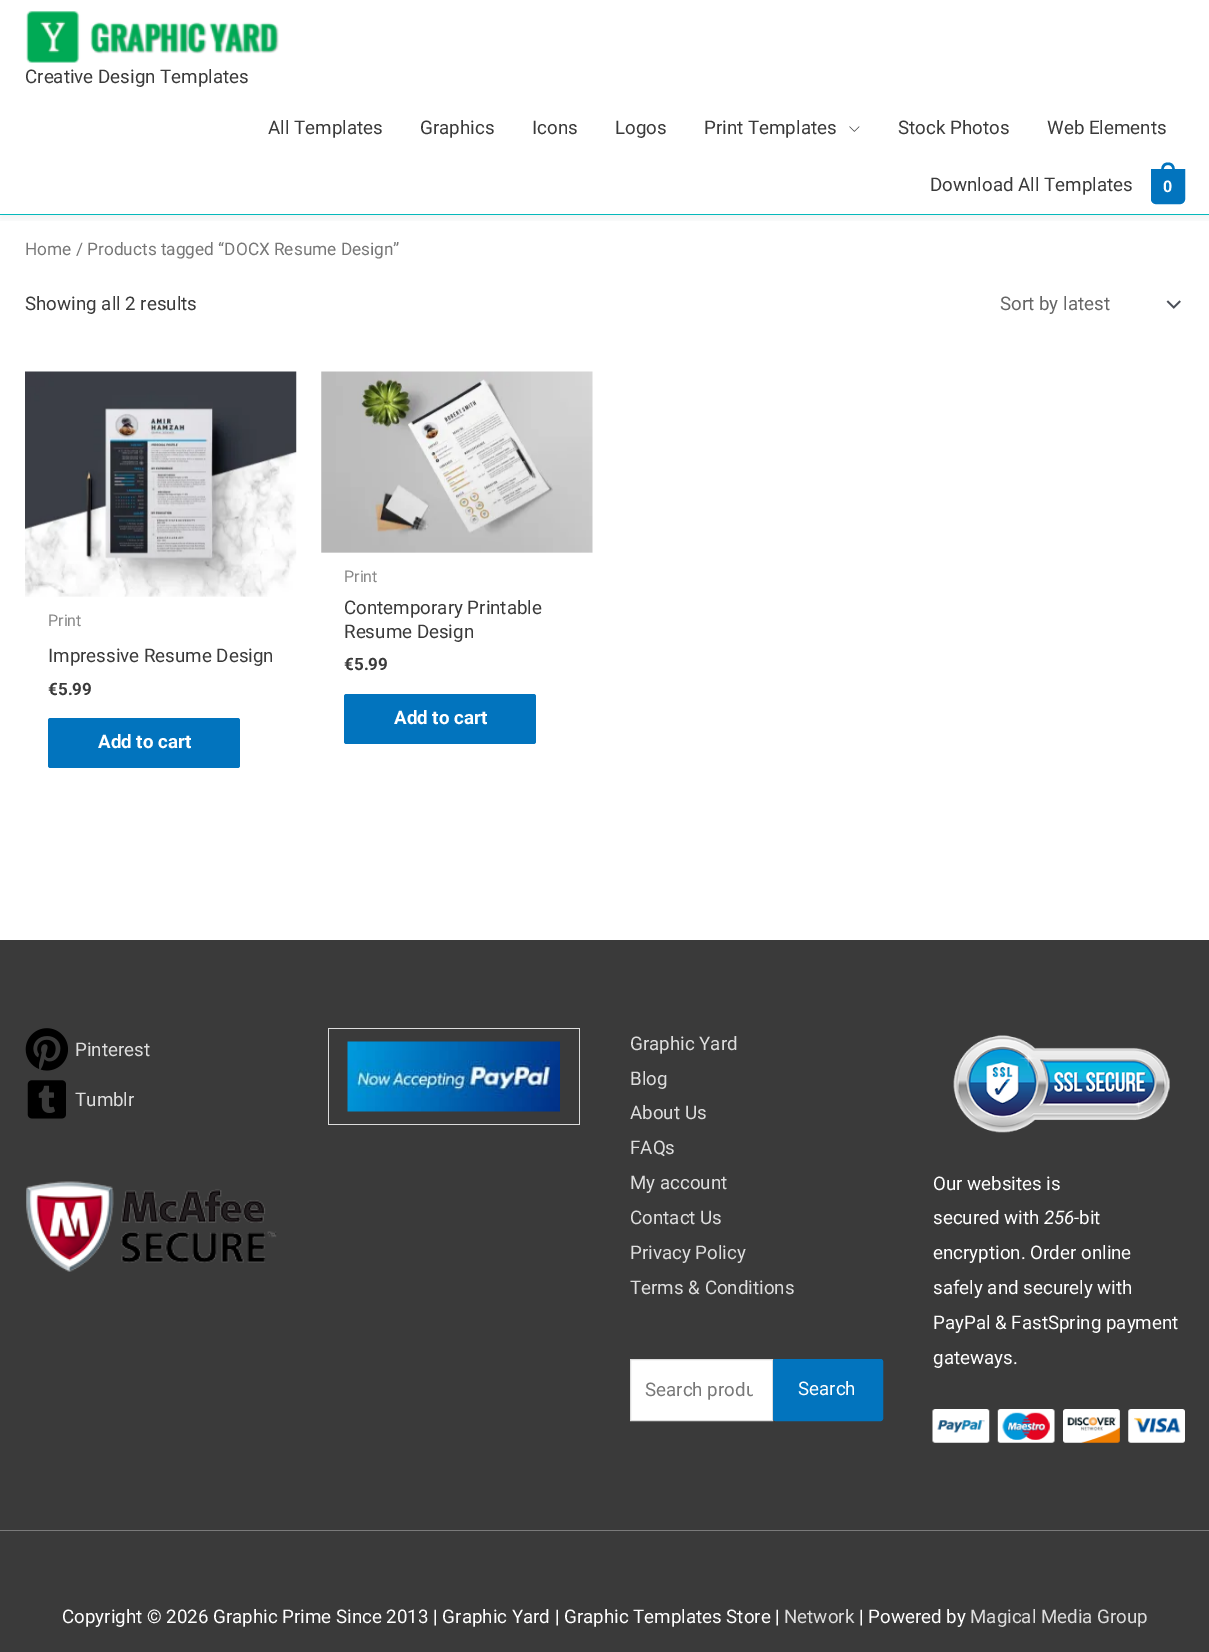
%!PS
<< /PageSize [1209 1652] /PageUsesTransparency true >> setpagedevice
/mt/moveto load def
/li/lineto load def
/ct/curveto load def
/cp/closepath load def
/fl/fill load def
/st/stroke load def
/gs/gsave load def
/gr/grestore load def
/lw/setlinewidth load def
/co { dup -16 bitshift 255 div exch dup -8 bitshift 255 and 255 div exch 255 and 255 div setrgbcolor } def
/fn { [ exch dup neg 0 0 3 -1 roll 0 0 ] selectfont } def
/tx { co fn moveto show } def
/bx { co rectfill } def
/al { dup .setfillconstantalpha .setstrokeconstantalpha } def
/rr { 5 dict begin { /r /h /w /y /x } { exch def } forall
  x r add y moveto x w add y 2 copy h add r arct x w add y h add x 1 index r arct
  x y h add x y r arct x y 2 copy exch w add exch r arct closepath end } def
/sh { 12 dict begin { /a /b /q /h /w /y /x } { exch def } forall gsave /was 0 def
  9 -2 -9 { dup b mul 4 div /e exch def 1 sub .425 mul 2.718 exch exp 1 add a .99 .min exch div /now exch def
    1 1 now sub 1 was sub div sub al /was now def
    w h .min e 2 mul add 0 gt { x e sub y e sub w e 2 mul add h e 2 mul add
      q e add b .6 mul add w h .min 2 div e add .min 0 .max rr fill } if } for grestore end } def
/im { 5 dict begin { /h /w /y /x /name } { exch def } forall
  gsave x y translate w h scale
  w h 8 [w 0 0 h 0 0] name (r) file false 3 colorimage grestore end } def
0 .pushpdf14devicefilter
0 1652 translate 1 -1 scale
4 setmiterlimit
0 0 1209 1652 16#FFFFFF bx
gs
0 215 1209 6 rectclip
16#243242 co
0 3 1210 215 0 6 .07 sh
gr
0 214 1209 1 16#05B9BC bx
(media/1.raw) 26 11 253 52 im
(media/2.raw) 849 126 11 6 im
16#0274BE co
1152.5 170.5 mt 1183.5 170.5 li 1183.5 199 li 1183.5 201 1182 202.5 1180 202.5 ct 1156 202.5 li 1154 202.5 1152.5 201 1152.5 199 ct cp gs fl gr
3 lw
st
1168 162.5 mt 1175.5 162.5 1175 170 1175 175 ct 1161 175 li 1161 170 1160.5 162.5 1168 162.5 ct cp 1168 165 mt 1173.5 165 1172.5 171.5 1172.5 175 ct 1163.5 175 li 1163.5 171.5 1162.5 165 1168 165 ct cp eofill
(media/3.raw) 1166 300 15 9 im
(media/4.raw) 25 371 272 226 im
48 718 192 50 2.5 rr fl
(media/5.raw) 321 371 272 182 im
344 694 192 50 2.5 rr fl
0 940 1209 590 16#3A3A3A bx
(media/6.raw) 25 1028 43 43 im
(media/7.raw) 27 1080 39 39 im
(media/8.raw) 26 1181 251 91 im
328 1028 252 1 16#DDDDDD bx
328 1028 1 97 16#DDDDDD bx
579 1029 1 96 16#DDDDDD bx
329 1124 251 1 16#DDDDDD bx
(media/9.raw) 347 1041 213 71 im
16#FFFFFF co
630.5 1359.5 mt 772.5 1359.5 li 772.5 1420.5 li 630.5 1420.5 li cp gs fl gr
16#DDDDDD co
1 lw
st
16#0274BE co
773.5 1359.5 109 61 2 rr gs fl gr
st
(media/10.raw) 953 1035 217 98 im
(media/11.raw) 932 1409 253 34 im
0 1530 1209 1 16#7A7A7A bx
0 1531 1209 121 16#3A3A3A bx
(Creative Design Templates) 25 83 /Roboto-Regular 18.75 16#3A3A3A tx
(All Templates) 268 134 /Roboto-Regular 18.75 16#3A3A3A tx
(Graphics) 420 134 /Roboto-Regular 18.75 16#3A3A3A tx
(Icons) 532 134 /Roboto-Regular 18.75 16#3A3A3A tx
(Logos) 615 134 /Roboto-Regular 18.75 16#3A3A3A tx
(Print Templates) 704 134 /Roboto-Regular 18.75 16#3A3A3A tx
(Stock Photos) 898 134 /Roboto-Regular 18.75 16#3A3A3A tx
(Web Elements) 1047 134 /Roboto-Regular 18.75 16#3A3A3A tx
(Download All Templates) 930 191 /Roboto-Regular 18.75 16#3A3A3A tx
(0) 1163 192 /Roboto-Bold 16 16#FFFFFF tx
(Home / Products tagged “DOCX Resume Design”) 25 255 /Roboto-Regular 17.25 16#777777 tx
(Showing all 2 results) 25 310 /Roboto-Regular 18.75 16#3A3A3A tx
(Sort by latest) 1000 310 /Roboto-Regular 18.75 16#666666 tx
(Print) 48 626 /Roboto-Regular 16 16#898989 tx
(Impressive Resume Design) 48 662 /Roboto-Regular 18.75 16#3A3A3A tx
(€5.99) 48 695 /Roboto-Bold 17 16#3A3A3A tx
(Add to cart) 98 748 /Roboto-Bold 18.75 16#FFFFFF tx
(Print) 344 582 /Roboto-Regular 16 16#898989 tx
(Contemporary Printable) 344 614 /Roboto-Regular 18.75 16#3A3A3A tx
(Resume Design) 344 638 /Roboto-Regular 18.75 16#3A3A3A tx
(€5.99) 344 670 /Roboto-Bold 17 16#3A3A3A tx
(Add to cart) 394 724 /Roboto-Bold 18.75 16#FFFFFF tx
(Pinterest) 75 1056 /Roboto-Regular 18.75 16#DDDDDD tx
(Tumblr) 75 1106 /Roboto-Regular 18.75 16#DDDDDD tx
(Graphic Yard) 630 1050 /Roboto-Regular 18.75 16#DDDDDD tx
(Blog) 630 1085 /Roboto-Regular 18.75 16#DDDDDD tx
(About Us) 630 1119 /Roboto-Regular 18.75 16#DDDDDD tx
(FAQs) 630 1154 /Roboto-Regular 18.75 16#DDDDDD tx
(My account) 630 1189 /Roboto-Regular 18.75 16#DDDDDD tx
(Contact Us) 630 1224 /Roboto-Regular 18.75 16#DDDDDD tx
(Privacy Policy) 630 1259 /Roboto-Regular 18.75 16#DDDDDD tx
(Terms & Conditions) 630 1294 /Roboto-Regular 18.75 16#DDDDDD tx
gs
645 1379 108 22 rectclip
(Search produ) 645 1396 /Roboto-Regular 18.75 16#777777 tx
gr
(Search) 798 1395 /Roboto-Regular 18.75 16#FFFFFF tx
(Our websites is) 933 1190 /Roboto-Regular 18.75 16#FFFFFF tx
(secured with) 933 1224 /Roboto-Regular 18.75 16#FFFFFF tx
(256) 1044 1224 /Roboto-Italic 18.75 16#FFFFFF tx
(-bit) 1074 1224 /Roboto-Regular 18.75 16#FFFFFF tx
(encryption. Order online) 933 1259 /Roboto-Regular 18.75 16#FFFFFF tx
(safely and securely with) 933 1294 /Roboto-Regular 18.75 16#FFFFFF tx
(PayPal & FastSpring payment) 933 1329 /Roboto-Regular 18.75 16#FFFFFF tx
(gateways.) 933 1364 /Roboto-Regular 18.75 16#FFFFFF tx
(Copyright © 2026 Graphic Prime Since 2013 | Graphic Yard | Graphic Templates Store |) 62 1623 /Roboto-Regular 18.75 16#FFFFFF tx
(Network) 784 1623 /Roboto-Regular 18.75 16#DDDDDD tx
(| Powered by) 859 1623 /Roboto-Regular 18.75 16#FFFFFF tx
(Magical Media Group) 970 1623 /Roboto-Regular 18.75 16#DDDDDD tx
.poppdf14devicefilter showpage
